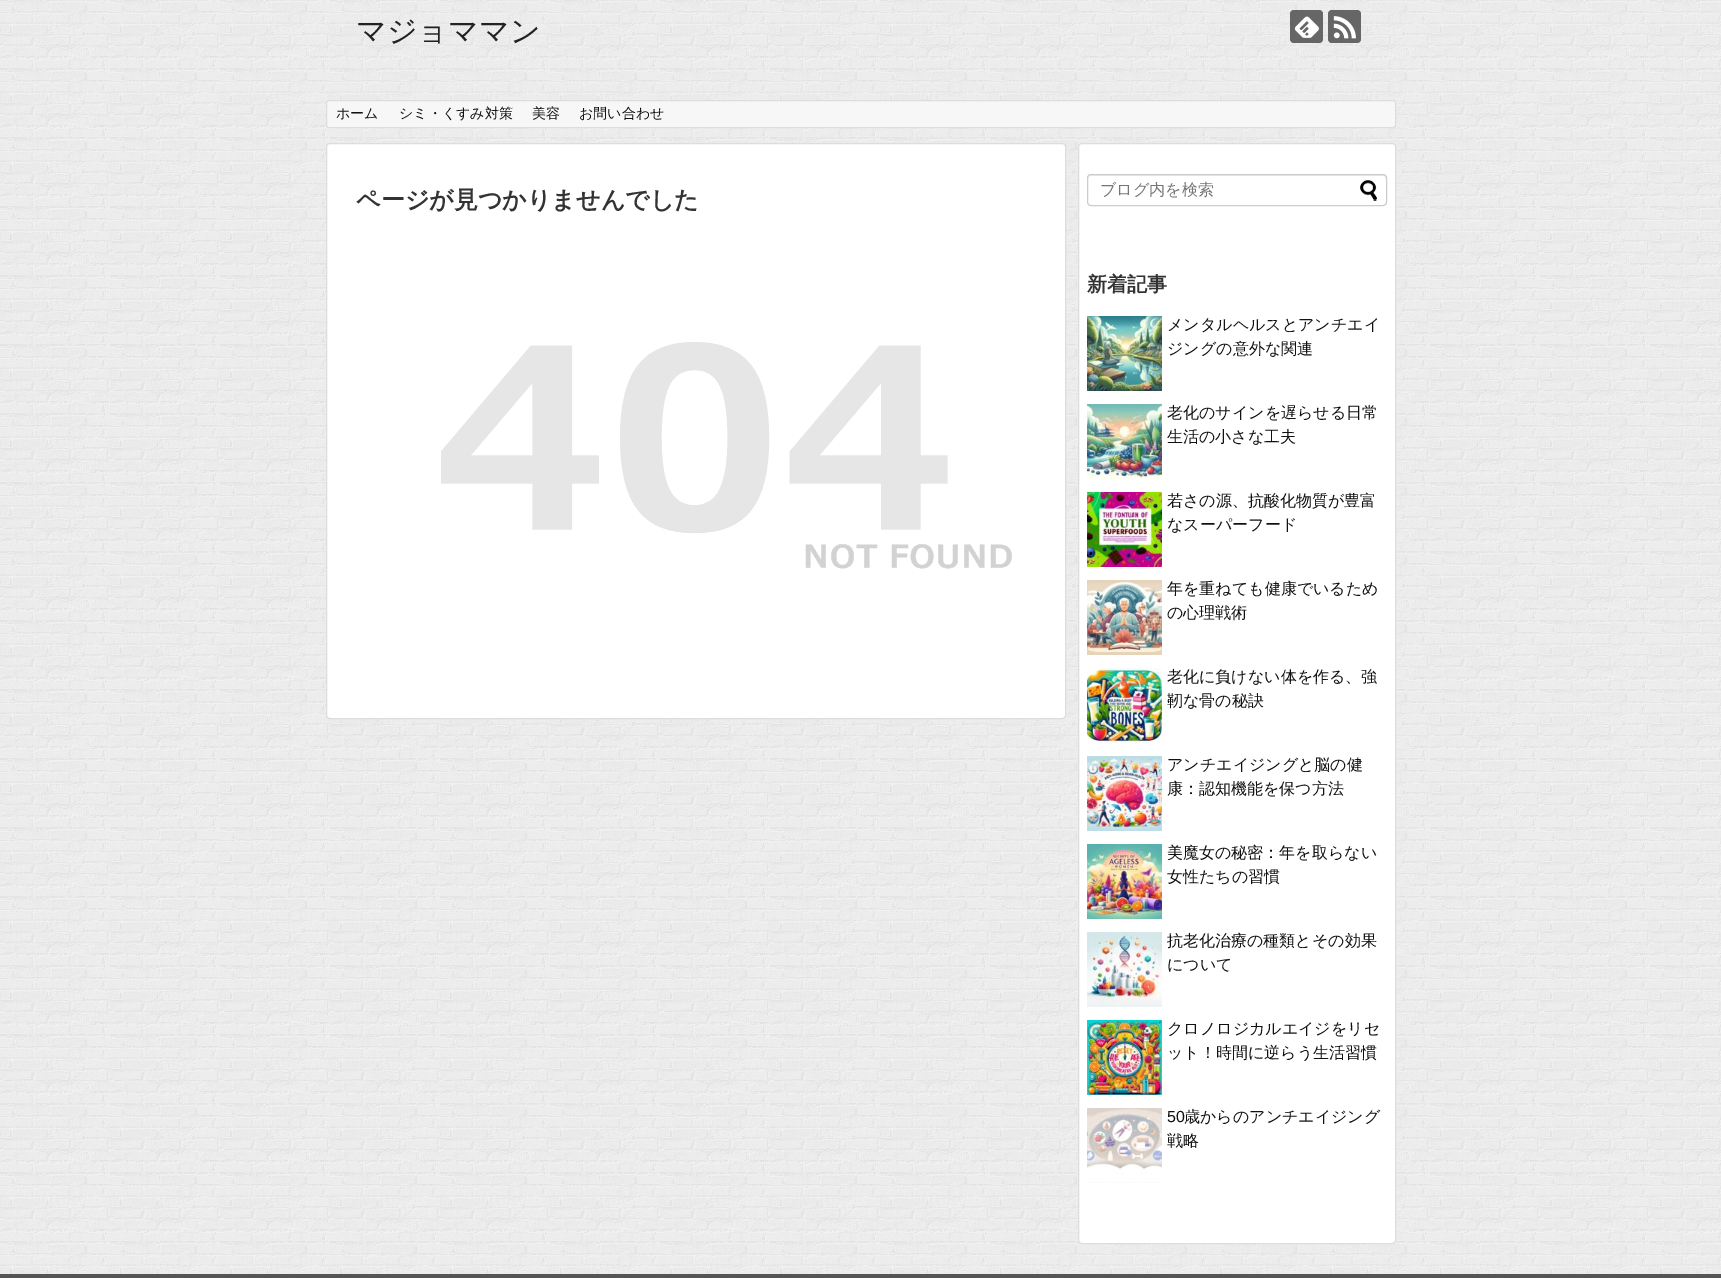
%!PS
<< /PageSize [1721 1278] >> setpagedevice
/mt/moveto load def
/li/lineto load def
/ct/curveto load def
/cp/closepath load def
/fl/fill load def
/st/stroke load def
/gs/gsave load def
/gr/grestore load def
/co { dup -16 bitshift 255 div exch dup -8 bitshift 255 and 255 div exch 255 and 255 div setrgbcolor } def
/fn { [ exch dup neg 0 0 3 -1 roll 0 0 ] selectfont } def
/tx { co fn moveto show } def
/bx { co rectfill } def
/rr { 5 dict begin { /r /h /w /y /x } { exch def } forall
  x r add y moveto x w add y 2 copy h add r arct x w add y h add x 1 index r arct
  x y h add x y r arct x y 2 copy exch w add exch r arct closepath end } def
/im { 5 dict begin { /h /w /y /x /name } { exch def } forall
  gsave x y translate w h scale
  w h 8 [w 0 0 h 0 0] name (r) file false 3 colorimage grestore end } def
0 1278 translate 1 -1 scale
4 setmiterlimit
0 0 1721 1278 16#FFFFFF bx
(media/1.raw) 0 0 1721 1274 im
16#666666 co
1290 10 33 33 4 rr fl
(media/2.raw) 1294 16 25 22 im
1328 10 33 33 4 rr fl
(media/3.raw) 1333 16 23 23 im
16#F7F7F7 co
326.5 100.5 1069 27 2.5 rr gs fl gr
16#DDDDDD co
st
16#FFFFFF co
326.5 143.5 739 575 3.5 rr gs fl gr
16#DDDDDD co
st
(media/4.raw) 441 342 571 227 im
16#FFFFFF co
1078.5 143.5 317 1100 3.5 rr gs fl gr
16#DDDDDD co
st
16#ECECEC co
1091 176 mt 1383 176 li 1385 176 1386 177 1386 179 ct 1385 176 li 1384 175 li 1091 175 li 1089 175 1088 177 1088 179 ct 1088 177 1089 176 1091 176 ct cp fl
16#CCCCCC co
1087.5 174.5 299 31 3.5 rr st
(media/5.raw) 1360 180 17 21 im
(media/6.raw) 1087 316 75 75 im
(media/7.raw) 1087 404 75 75 im
(media/8.raw) 1087 492 75 75 im
(media/9.raw) 1087 580 75 75 im
(media/10.raw) 1087 668 75 75 im
(media/11.raw) 1087 756 75 75 im
(media/12.raw) 1087 844 75 75 im
(media/13.raw) 1087 932 75 75 im
(media/14.raw) 1087 1020 75 75 im
(media/15.raw) 1087 1108 75 75 im
0 1274 1721 4 16#555555 bx
(マジョママン) 356 41 /WenQuanYiZenHei-Medium 30 16#222222 tx
(ホーム) 336 118 /WenQuanYiZenHei-Medium 14 16#111111 tx
(シミ・くすみ対策) 399 118 /WenQuanYiZenHei-Medium 14 16#111111 tx
(美容) 532 118 /WenQuanYiZenHei-Medium 14 16#111111 tx
(お問い合わせ) 579 118 /WenQuanYiZenHei-Medium 14 16#111111 tx
(ページが見つかりませんでした) 356 208 /WenQuanYiZenHei-Bold 24 16#333333 tx
(ブログ内を検索) 1100 195 /WenQuanYiZenHei-Medium 16 16#757575 tx
(新着記事) 1087 291 /WenQuanYiZenHei-Bold 20 16#333333 tx
(メンタルヘルスとアンチエイ) 1167 330 /WenQuanYiZenHei-Medium 16 16#111111 tx
(ジングの意外な関連) 1167 354 /WenQuanYiZenHei-Medium 16 16#111111 tx
(老化のサインを遅らせる日常) 1167 418 /WenQuanYiZenHei-Medium 16 16#111111 tx
(生活の小さな工夫) 1167 442 /WenQuanYiZenHei-Medium 16 16#111111 tx
(若さの源、抗酸化物質が豊富) 1167 506 /WenQuanYiZenHei-Medium 16 16#111111 tx
(なスーパーフード) 1167 530 /WenQuanYiZenHei-Medium 16 16#111111 tx
(年を重ねても健康でいるため) 1167 594 /WenQuanYiZenHei-Medium 16 16#111111 tx
(の心理戦術) 1167 618 /WenQuanYiZenHei-Medium 16 16#111111 tx
(老化に負けない体を作る、強) 1167 682 /WenQuanYiZenHei-Medium 16 16#111111 tx
(靭な骨の秘訣) 1167 706 /WenQuanYiZenHei-Medium 16 16#111111 tx
(アンチエイジングと脳の健) 1167 770 /WenQuanYiZenHei-Medium 16 16#111111 tx
(康：認知機能を保つ方法) 1167 794 /WenQuanYiZenHei-Medium 16 16#111111 tx
(美魔女の秘密：年を取らない) 1167 858 /WenQuanYiZenHei-Medium 16 16#111111 tx
(女性たちの習慣) 1167 882 /WenQuanYiZenHei-Medium 16 16#111111 tx
(抗老化治療の種類とその効果) 1167 946 /WenQuanYiZenHei-Medium 16 16#111111 tx
(について) 1167 970 /WenQuanYiZenHei-Medium 16 16#111111 tx
(クロノロジカルエイジをリセ) 1167 1034 /WenQuanYiZenHei-Medium 16 16#111111 tx
(ット！時間に逆らう生活習慣) 1167 1058 /WenQuanYiZenHei-Medium 16 16#111111 tx
(50) 1167 1122 /LiberationSans-Regular 16 16#111111 tx
(歳からのアンチエイジング) 1184 1122 /WenQuanYiZenHei-Medium 16 16#111111 tx
(戦略) 1167 1146 /WenQuanYiZenHei-Medium 16 16#111111 tx
showpage
